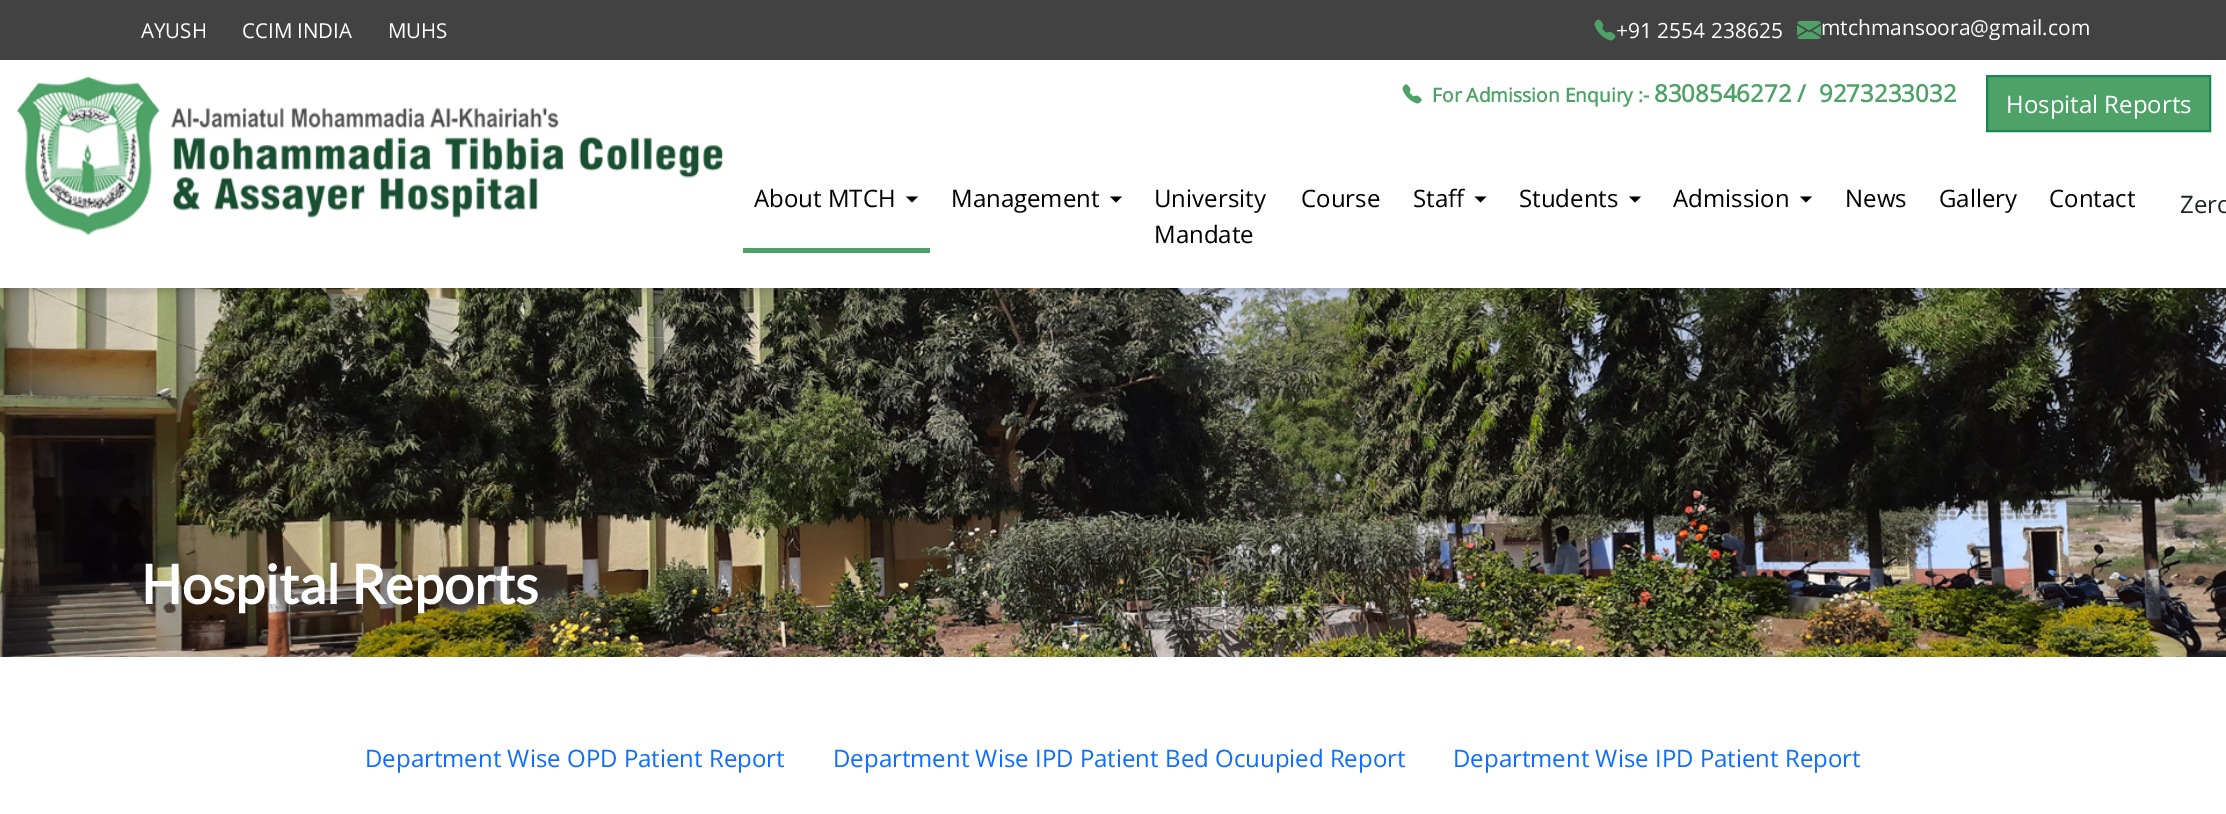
%!PS
<< /PageSize [2226 814] /PageUsesTransparency true >> setpagedevice
/mt/moveto load def
/li/lineto load def
/cp/closepath load def
/fl/fill load def
/st/stroke load def
/gs/gsave load def
/gr/grestore load def
/lw/setlinewidth load def
/co { dup -16 bitshift 255 div exch dup -8 bitshift 255 and 255 div exch 255 and 255 div setrgbcolor } def
/fn { [ exch dup neg 0 0 3 -1 roll 0 0 ] selectfont } def
/tx { co fn moveto show } def
/bx { co rectfill } def
/al { dup .setfillconstantalpha .setstrokeconstantalpha } def
/rr { 5 dict begin { /r /h /w /y /x } { exch def } forall
  x r add y moveto x w add y 2 copy h add r arct x w add y h add x 1 index r arct
  x y h add x y r arct x y 2 copy exch w add exch r arct closepath end } def
/sh { 12 dict begin { /a /b /q /h /w /y /x } { exch def } forall gsave /was 0 def
  9 -2 -9 { dup b mul 4 div /e exch def 1 sub .425 mul 2.718 exch exp 1 add a .99 .min exch div /now exch def
    1 1 now sub 1 was sub div sub al /was now def
    w h .min e 2 mul add 0 gt { x e sub y e sub w e 2 mul add h e 2 mul add
      q e add b .6 mul add w h .min 2 div e add .min 0 .max rr fill } if } for grestore end } def
/im { 5 dict begin { /h /w /y /x /name } { exch def } forall
  gsave x y translate w h scale
  w h 8 [w 0 0 h 0 0] name (r) file false 3 colorimage grestore end } def
0 .pushpdf14devicefilter
0 814 translate 1 -1 scale
4 setmiterlimit
0 0 2226 814 16#FFFFFF bx
(media/5.raw) 0 288 2226 369 im
16#000000 co
0 3 2226 288 0 4 .15 sh
0 60 2226 228 16#FFFFFF bx
0 0 2226 60 16#424242 bx
(media/1.raw) 1594 19 22 22 im
(media/2.raw) 1797 20 24 20 im
(media/3.raw) 16 76 707 160 im
(media/4.raw) 1402 84 20 20 im
16#4EA267 co
1987 76 mt 2210 76 li 2210 131 li 1987 131 li cp gs fl gr
16#198754 co
2 lw
st
743 248 187 5 16#4EA267 bx
16#000000 co
906 196.5 mt 918 196.5 li 912 202.5 li cp fl
1110 196.5 mt 1122 196.5 li 1116 202.5 li cp fl
1474.5 196.5 mt 1486.5 196.5 li 1480.5 202.5 li cp fl
1629 196.5 mt 1641 196.5 li 1635 202.5 li cp fl
1800 196.5 mt 1812 196.5 li 1806 202.5 li cp fl
(AYUSH) 141 38 /OpenSans-Regular 20.5 16#FFFFFF tx
(CCIM INDIA) 242 38 /OpenSans-Regular 20.5 16#FFFFFF tx
(MUHS) 388 38 /OpenSans-Regular 20.5 16#FFFFFF tx
(+91 2554 238625) 1616 38 /OpenSans-Regular 21 16#FFFFFF tx
(mtchmansoora@gmail.com) 1821 35 /OpenSans-Regular 21 16#FFFFFF tx
(For Admission Enquiry :-) 1432 102 /OpenSans-Bold 19.25 16#4EA267 tx
(8308546272 /) 1654 102 /OpenSans-Bold 24 16#4EA267 tx
(9273233032) 1819 102 /OpenSans-Bold 24 16#4EA267 tx
(Hospital Reports) 2006 113 /OpenSans-Regular 24 16#FFFFFF tx
(About MTCH) 754 207 /OpenSans-Regular 24 16#000000 tx
(Management) 951 207 /OpenSans-Regular 24 16#000000 tx
(University) 1154 207 /OpenSans-Regular 24 16#000000 tx
(Mandate) 1154 243 /OpenSans-Regular 24 16#000000 tx
(Course) 1301 207 /OpenSans-Regular 24 16#000000 tx
(Staff) 1413 207 /OpenSans-Regular 24 16#000000 tx
(Students) 1519 207 /OpenSans-Regular 24 16#000000 tx
(Admission) 1673 207 /OpenSans-Regular 24 16#000000 tx
(News) 1845 207 /OpenSans-Regular 24 16#000000 tx
(Gallery) 1939 207 /OpenSans-Regular 24 16#000000 tx
(Contact) 2049 207 /OpenSans-Regular 24 16#000000 tx
(Zero) 2180 213 /OpenSans-Regular 24 16#212529 tx
(Hospital Reports) 141 604 /Lato-Bold 54 16#FFFFFF tx
(Department Wise OPD Patient Report) 365 767 /OpenSans-Regular 24 16#0D6EFD tx
(Department Wise IPD Patient Bed Ocuupied Report) 833 767 /OpenSans-Regular 24 16#0D6EFD tx
(Department Wise IPD Patient Report) 1453 767 /OpenSans-Regular 24 16#0D6EFD tx
.poppdf14devicefilter showpage
